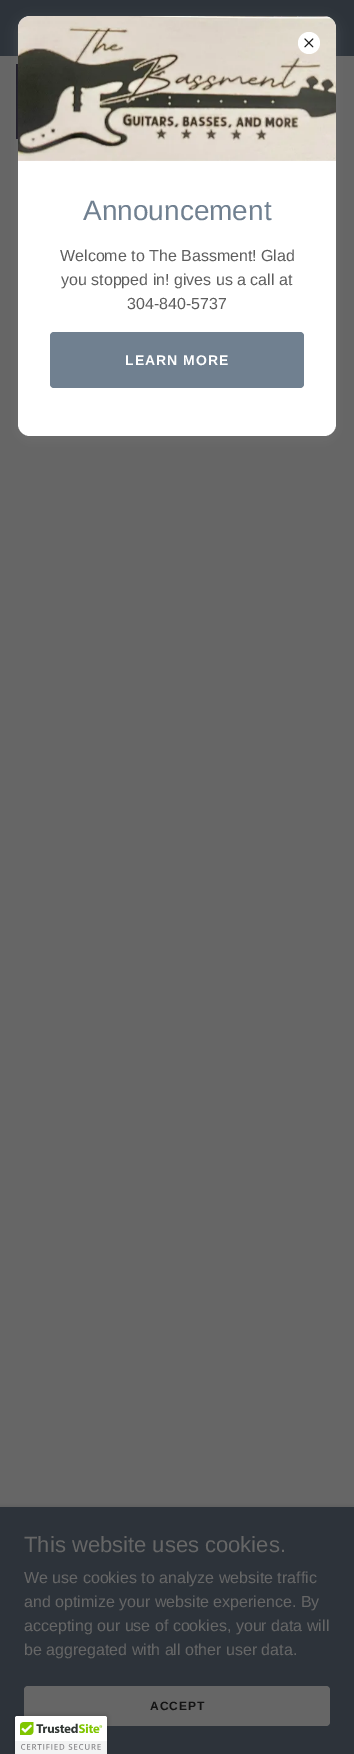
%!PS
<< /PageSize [354 1754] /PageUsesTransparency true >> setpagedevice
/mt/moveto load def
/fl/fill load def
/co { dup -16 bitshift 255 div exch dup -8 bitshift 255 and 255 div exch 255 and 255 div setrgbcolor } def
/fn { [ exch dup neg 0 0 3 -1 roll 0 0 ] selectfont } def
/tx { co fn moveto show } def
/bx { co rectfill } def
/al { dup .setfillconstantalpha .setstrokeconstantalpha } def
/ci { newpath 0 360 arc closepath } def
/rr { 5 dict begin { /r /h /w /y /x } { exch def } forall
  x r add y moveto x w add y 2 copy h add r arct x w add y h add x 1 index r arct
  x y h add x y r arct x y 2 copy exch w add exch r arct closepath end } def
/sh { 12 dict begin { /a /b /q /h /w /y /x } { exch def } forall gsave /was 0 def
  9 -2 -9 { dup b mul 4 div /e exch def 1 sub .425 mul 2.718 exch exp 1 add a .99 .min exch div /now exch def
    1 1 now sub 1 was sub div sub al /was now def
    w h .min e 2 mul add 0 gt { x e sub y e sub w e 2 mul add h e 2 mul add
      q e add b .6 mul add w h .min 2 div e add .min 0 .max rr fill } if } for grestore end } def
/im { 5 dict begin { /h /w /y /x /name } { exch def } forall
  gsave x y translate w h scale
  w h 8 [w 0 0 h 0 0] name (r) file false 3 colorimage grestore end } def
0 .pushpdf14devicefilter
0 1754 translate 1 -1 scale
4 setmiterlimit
0 0 354 1754 16#666666 bx
0 0 354 56 16#2D333A bx
(media/1.raw) 16 64 2 75 im
16#757575 co
18 20 318 420 12 6 .4 sh
16#FFFFFF co
18 16 318 420 12 rr fl
(media/3.raw) 18 16 318 145 im
309 43 11 ci fl
(media/2.raw) 304 38 10 10 im
16#708090 co
50 332 254 56 4 rr fl
16#000000 co
0 1509 354 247 0 3 .3 sh
0 1507 354 247 16#2D333A bx
16#666666 co
24 1686 306 40 4 rr fl
16#000000 co
15 1716 92 38 2 2.5 .2 sh
(media/4.raw) 15 1716 92 38 im
(Announcement) 83 220 /LiberationSans-Regular 28 16#708090 tx
(Welcome to The Bassment! Glad) 60 261 /LiberationSans-Regular 16 16#5E5E5E tx
(you stopped in! gives us a call at) 61 285 /LiberationSans-Regular 16 16#5E5E5E tx
(304-840-5737) 127 309 /LiberationSans-Regular 16 16#5E5E5E tx
/LiberationSans-Bold 14 fn
16#FFFFFF co
125 365 mt 1 0 (LEARN MORE) ashow
(This website uses cookies.) 24 1552 /LiberationSans-Regular 22 16#666666 tx
(We use cookies to analyze website traffic) 24 1583 /LiberationSans-Regular 16 16#666666 tx
(and optimize your website experience. By) 24 1607 /LiberationSans-Regular 16 16#666666 tx
(accepting our use of cookies, your data will) 24 1631 /LiberationSans-Regular 16 16#666666 tx
(be aggregated with all other user data.) 24 1655 /LiberationSans-Regular 16 16#666666 tx
/LiberationSans-Bold 12 fn
16#131313 co
150 1710 mt 1 0 (ACCEPT) ashow
.poppdf14devicefilter showpage
